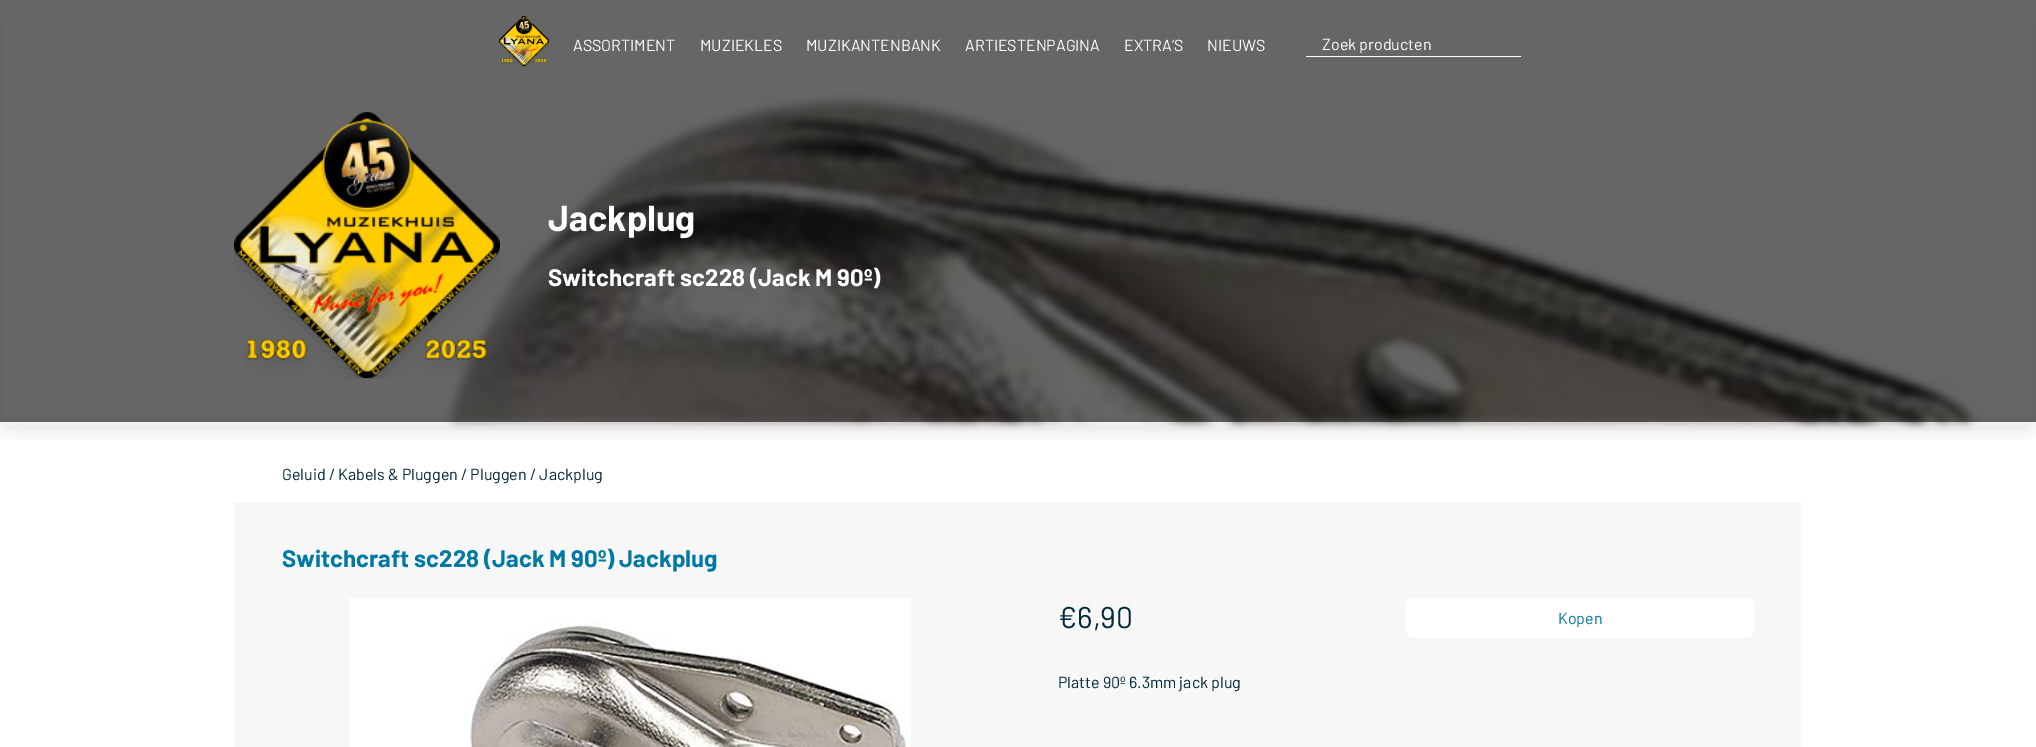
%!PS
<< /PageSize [2036 747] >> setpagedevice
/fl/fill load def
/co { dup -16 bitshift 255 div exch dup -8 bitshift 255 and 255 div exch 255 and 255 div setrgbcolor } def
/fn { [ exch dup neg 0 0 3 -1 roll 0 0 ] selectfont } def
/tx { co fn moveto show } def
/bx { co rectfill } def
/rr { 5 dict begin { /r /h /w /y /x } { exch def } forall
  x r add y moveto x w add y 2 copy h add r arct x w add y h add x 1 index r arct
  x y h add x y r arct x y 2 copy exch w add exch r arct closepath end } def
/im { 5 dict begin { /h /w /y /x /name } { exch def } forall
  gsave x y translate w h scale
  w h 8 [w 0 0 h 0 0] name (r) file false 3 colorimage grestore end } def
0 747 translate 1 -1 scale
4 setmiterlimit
0 0 2036 747 16#FFFFFF bx
0 0 2036 422 16#666666 bx
(media/2.raw) 0 21 2036 419 im
(media/1.raw) 499 16 50 51 im
1306 56 215 1 16#FFFFFF bx
(media/3.raw) 234 112 266 267 im
234 502 1568 245 16#F7F7F7 bx
(media/4.raw) 349 598 562 149 im
16#FFFFFF co
1406 598 348 40 8 rr fl
(ASSORTIMENT) 573 51 /Barlow-Regular 16 16#FFFFFF tx
(MUZIEKLES) 700 51 /Barlow-Regular 16 16#FFFFFF tx
(MUZIKANTENBANK) 806 51 /Barlow-Regular 16 16#FFFFFF tx
(ARTIESTENPAGINA) 965 51 /Barlow-Regular 16 16#FFFFFF tx
(EXTRA’S) 1124 51 /Barlow-Regular 16 16#FFFFFF tx
(NIEUWS) 1207 51 /Barlow-Regular 16 16#FFFFFF tx
(Zoek producten) 1322 50 /Barlow-Regular 16 16#FFFFFF tx
(Jackplug) 548 231 /Barlow-Bold 36 16#FFFFFF tx
(Switchcraft sc228 \(Jack M 90º\)) 548 286 /Barlow-Bold 24 16#FFFFFF tx
(Geluid / Kabels & Pluggen / Pluggen / Jackplug) 282 480 /Barlow-Regular 16 16#002939 tx
(Switchcraft sc228 \(Jack M 90º\) Jackplug) 282 567 /Barlow-Bold 24 16#0079A5 tx
(€6,90) 1058 628 /Barlow-Regular 30 16#002939 tx
(Kopen) 1558 624 /Barlow-Regular 16 16#0079A5 tx
(Platte 90º 6.3mm jack plug) 1058 688 /Barlow-Regular 16 16#002939 tx
showpage
